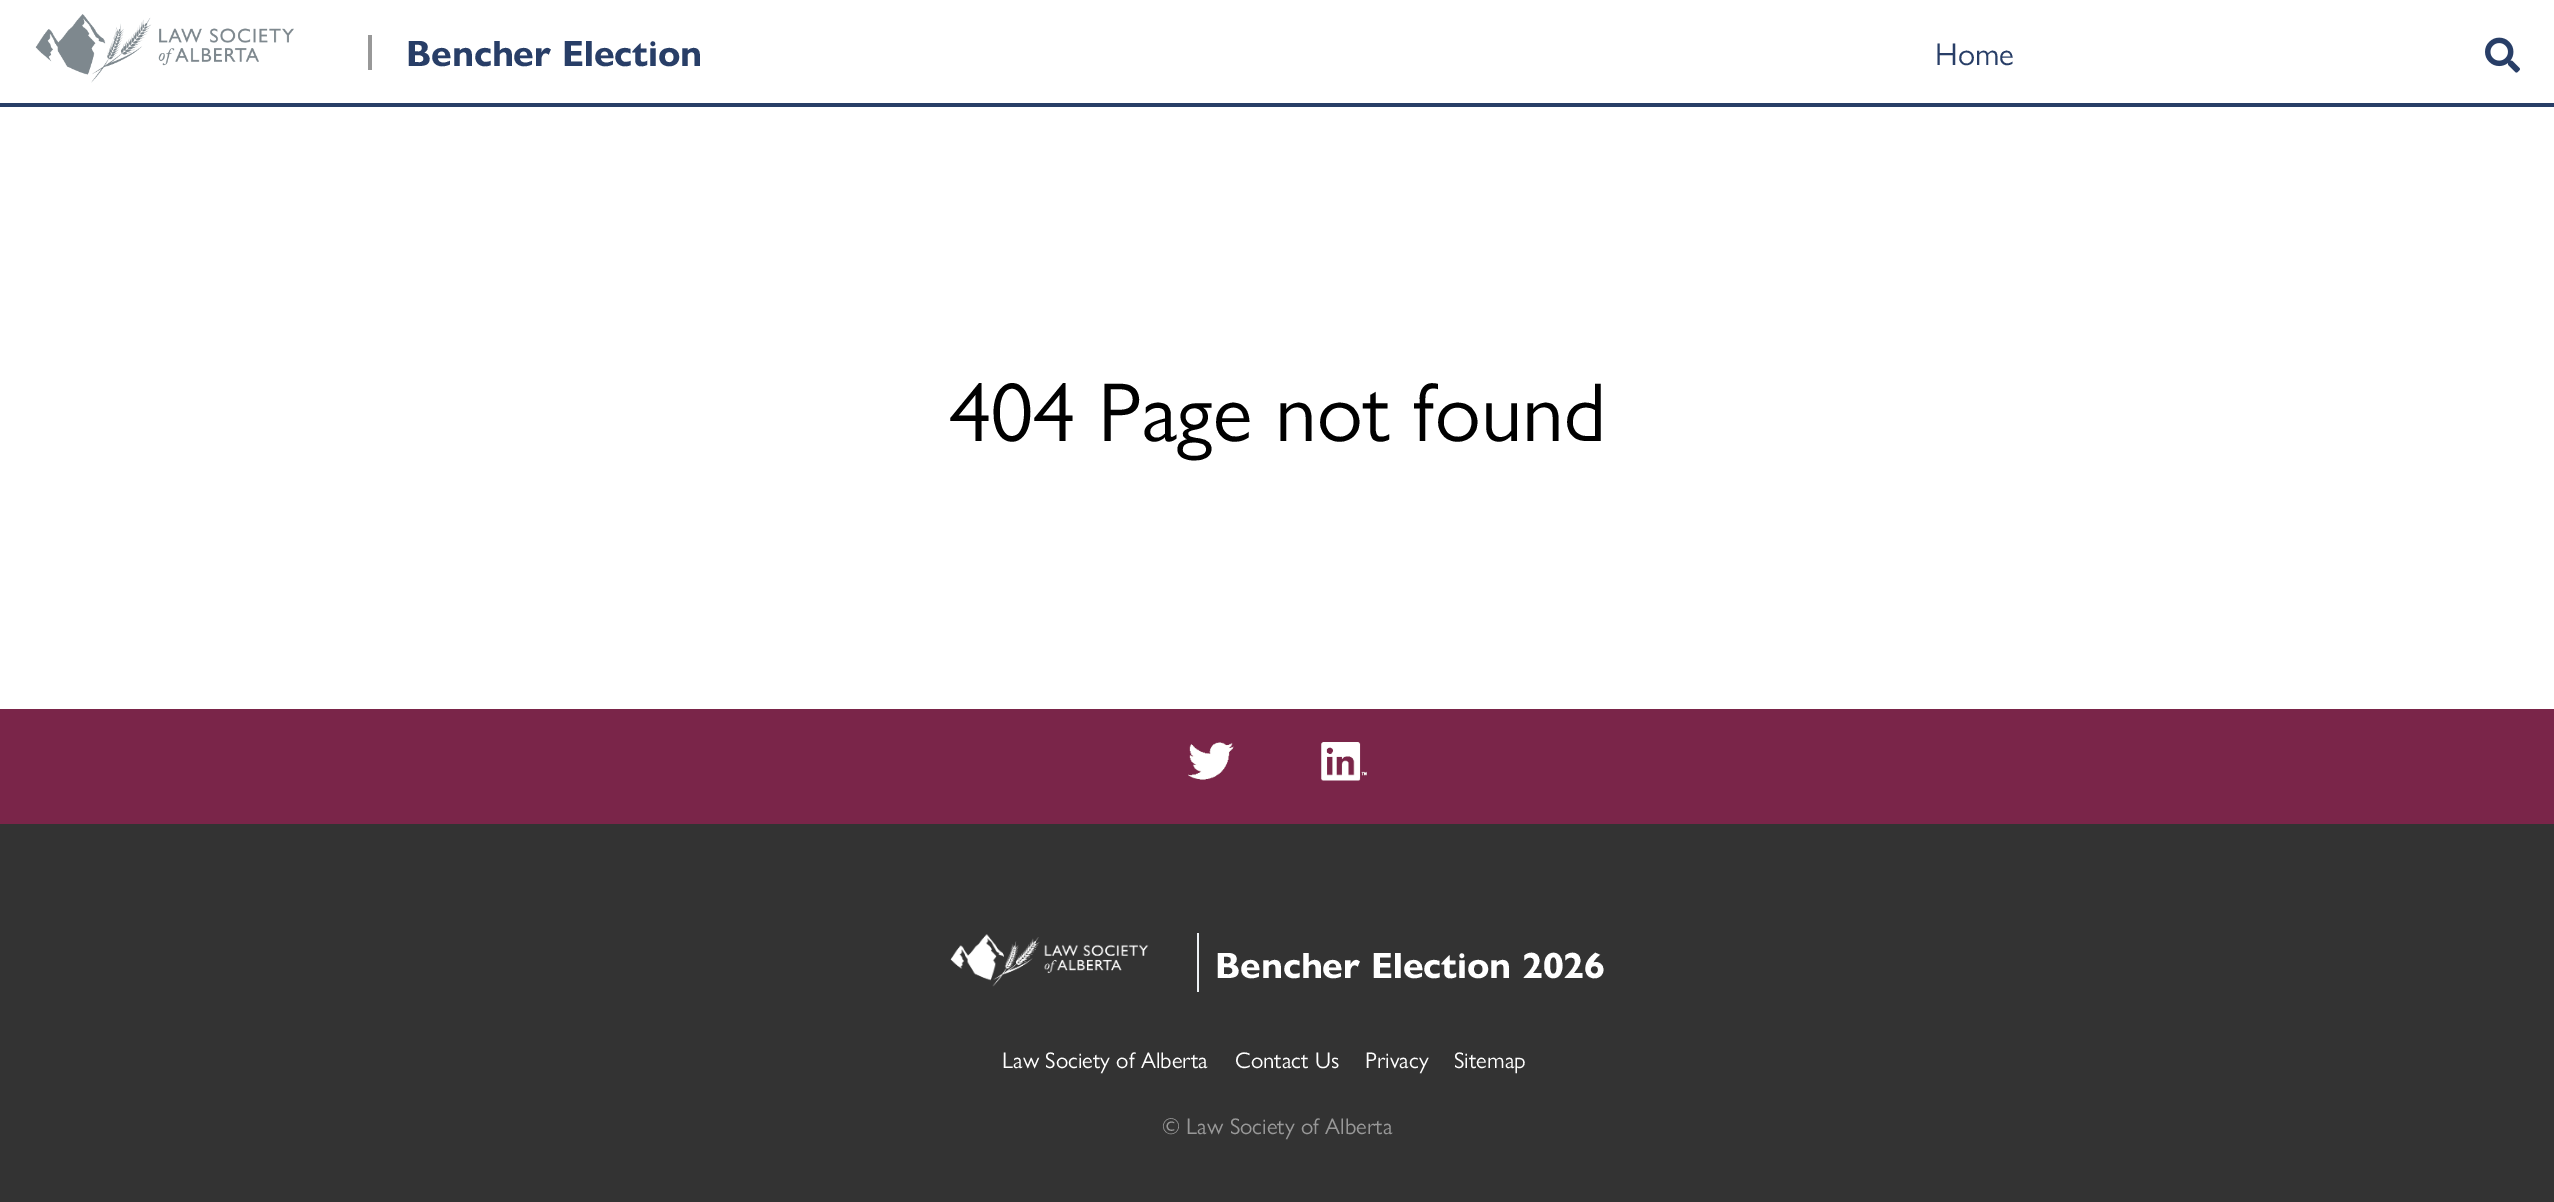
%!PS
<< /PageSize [2554 1202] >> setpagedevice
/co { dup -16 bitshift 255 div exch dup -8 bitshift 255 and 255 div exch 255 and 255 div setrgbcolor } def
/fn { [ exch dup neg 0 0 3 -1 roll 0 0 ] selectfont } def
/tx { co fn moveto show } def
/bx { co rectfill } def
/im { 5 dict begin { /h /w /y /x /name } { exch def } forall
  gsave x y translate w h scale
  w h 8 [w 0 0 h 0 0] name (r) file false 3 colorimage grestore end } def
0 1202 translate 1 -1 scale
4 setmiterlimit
0 0 2554 1202 16#FFFFFF bx
0 103 2554 4 16#283E67 bx
(media/1.raw) 35 14 259 69 im
368 35 4 35 16#989898 bx
(media/2.raw) 2485 37 35 36 im
0 709 2554 115 16#7A2549 bx
(media/3.raw) 1188 742 46 38 im
(media/4.raw) 1321 742 46 39 im
0 824 2554 378 16#333333 bx
(media/5.raw) 950 934 199 53 im
1197 933 2 59 16#EEF2F5 bx
(Bencher Election) 406 66 /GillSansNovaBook-Bold 36.75 16#283E67 tx
(Home) 1935 65 /GillSansNovaBook-Regular 31.5 16#283E67 tx
(404 Page not found) 949 441 /GillSansNovaBook-Regular 84 16#000000 tx
(Bencher Election 2026) 1215 978 /GillSansNovaBook-Bold 36.75 16#FFFFFF tx
(Law Society of Alberta) 1002 1068 /GillSansNovaBook-Regular 22.75 16#FFFFFF tx
(Contact Us) 1235 1068 /GillSansNovaBook-Regular 22.75 16#FFFFFF tx
(Privacy) 1365 1068 /GillSansNovaBook-Regular 22.75 16#FFFFFF tx
(Sitemap) 1454 1068 /GillSansNovaBook-Regular 22.75 16#FFFFFF tx
(© Law Society of Alberta) 1162 1134 /GillSansNovaBook-Regular 22.75 16#989898 tx
showpage
